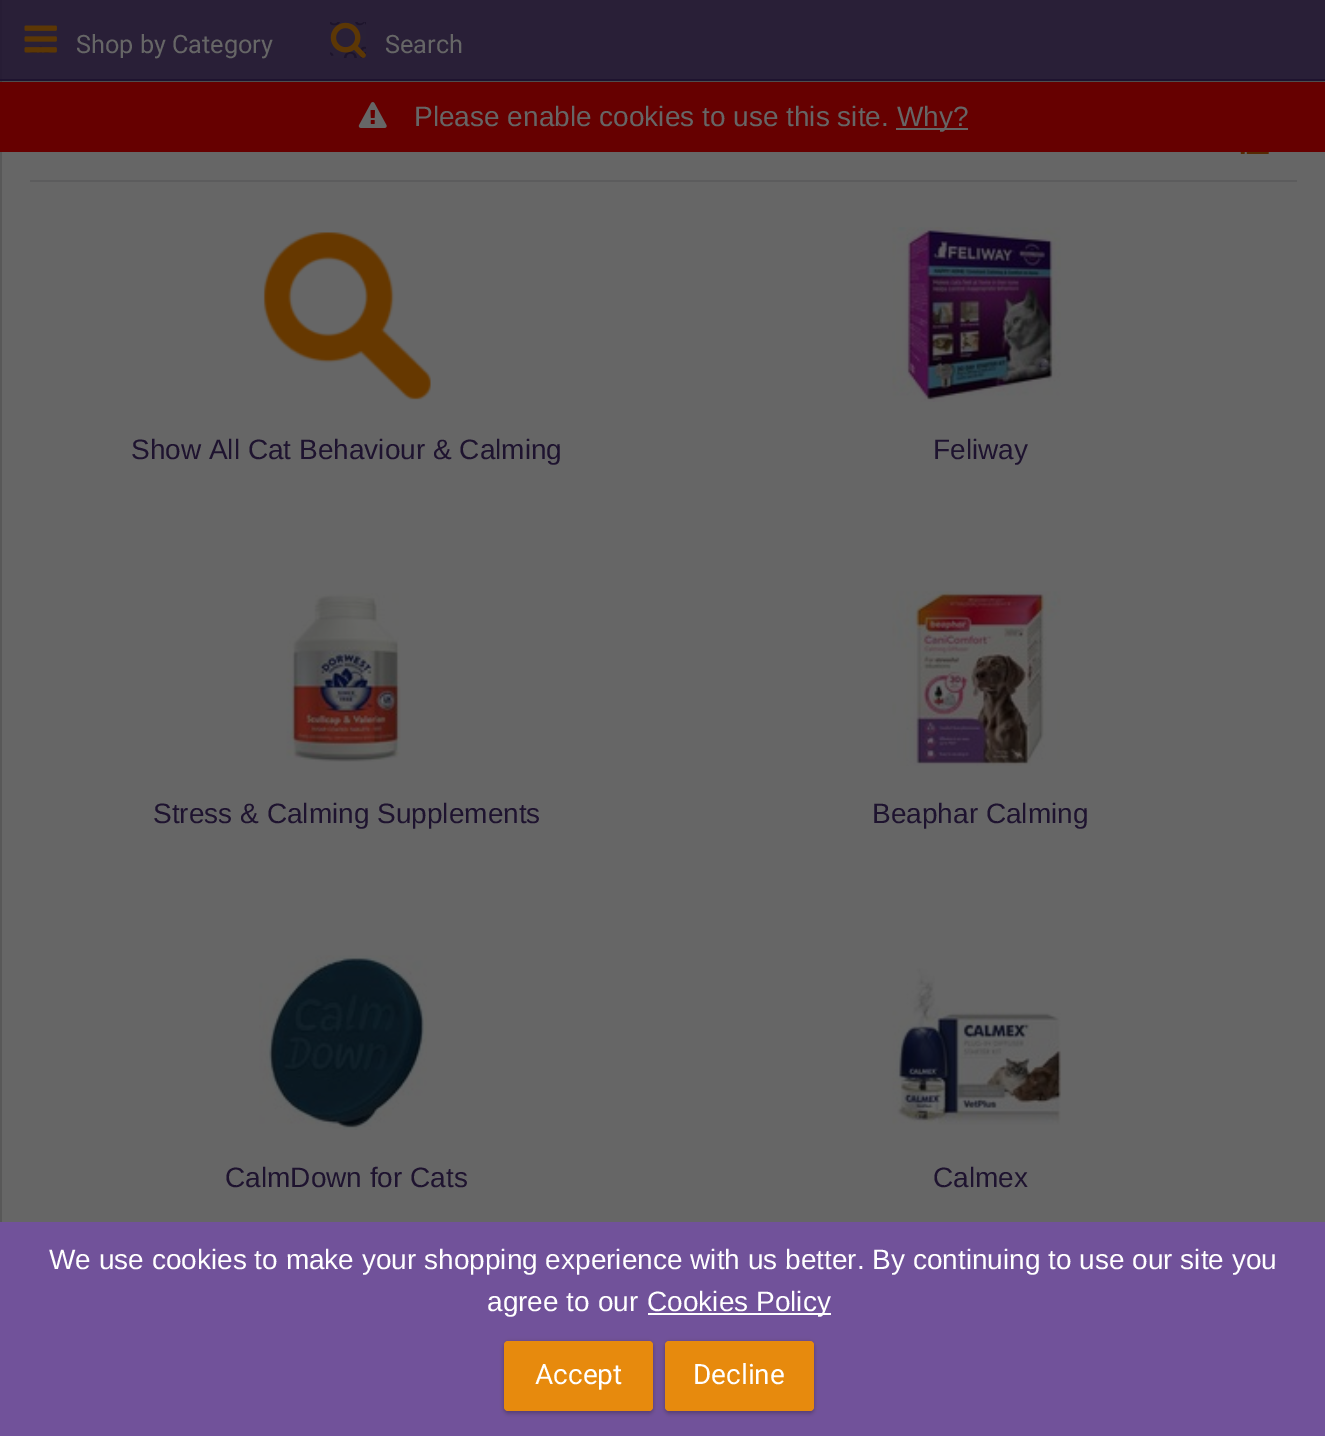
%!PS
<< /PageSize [1325 1436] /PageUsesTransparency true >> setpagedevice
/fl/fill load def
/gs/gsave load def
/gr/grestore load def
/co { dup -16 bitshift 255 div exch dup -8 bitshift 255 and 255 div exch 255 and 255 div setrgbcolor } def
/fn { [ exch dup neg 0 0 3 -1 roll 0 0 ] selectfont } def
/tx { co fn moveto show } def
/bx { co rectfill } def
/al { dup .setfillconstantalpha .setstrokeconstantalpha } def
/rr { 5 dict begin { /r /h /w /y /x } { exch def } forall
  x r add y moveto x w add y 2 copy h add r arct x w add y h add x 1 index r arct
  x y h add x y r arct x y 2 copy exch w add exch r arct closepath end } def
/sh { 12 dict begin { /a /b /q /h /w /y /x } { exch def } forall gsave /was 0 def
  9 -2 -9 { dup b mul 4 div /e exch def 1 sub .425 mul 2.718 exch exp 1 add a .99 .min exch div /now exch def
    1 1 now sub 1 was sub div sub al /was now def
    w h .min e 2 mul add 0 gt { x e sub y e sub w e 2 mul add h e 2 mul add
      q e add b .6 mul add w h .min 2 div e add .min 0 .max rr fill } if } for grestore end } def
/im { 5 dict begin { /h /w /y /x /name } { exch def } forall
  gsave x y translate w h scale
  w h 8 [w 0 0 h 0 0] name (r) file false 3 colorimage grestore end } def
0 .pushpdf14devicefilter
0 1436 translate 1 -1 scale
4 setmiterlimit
0 0 1325 1436 16#585858 bx
2 0 1323 1222 16#666666 bx
gs
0 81 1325 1 rectclip
16#000000 co
0 2 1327 80 0 2 .38 sh
gr
0.85 al
0 0 1325 79 16#1E132F bx
1 al
0 79 1325 2 16#1E132F bx
(media/1.raw) 24 25 33 28 im
(media/2.raw) 330 22 36 36 im
0 82 1325 70 16#660000 bx
(media/3.raw) 358 102 29 26 im
896 128 72 2 16#666666 bx
30 180 1267 2 16#5C5C5D bx
(media/4.raw) 1240 152 29 2 im
(media/5.raw) 263 232 168 168 im
(media/6.raw) 892 227 169 175 im
(media/7.raw) 286 593 115 169 im
(media/8.raw) 892 591 169 175 im
(media/9.raw) 259 955 168 175 im
(media/10.raw) 892 968 170 157 im
0 1222 1325 214 16#71529A bx
648 1313 183 2 16#FFFFFF bx
16#000000 co
504 1341 149 70 4 2 .12 sh
504 1344 149 70 4 2 .16 sh
16#E78A0D co
504 1341 149 70 4 rr fl
16#000000 co
665 1341 149 70 4 2 .12 sh
665 1344 149 70 4 2 .16 sh
16#E78A0D co
665 1341 149 70 4 rr fl
(Shop by Category) 76 53 /Roboto-Regular 25.25 16#666666 tx
(Search) 385 53 /Roboto-Regular 25.25 16#666666 tx
(Please enable cookies to use this site.) 414 126 /LiberationSans-Regular 28 16#666666 tx
(Why?) 897 126 /LiberationSans-Regular 28 16#666666 tx
(Show All Cat Behaviour & Calming) 131 459 /LiberationSans-Regular 28 16#1E132F tx
(Feliway) 933 459 /LiberationSans-Regular 28 16#1E132F tx
(Stress & Calming Supplements) 153 823 /LiberationSans-Regular 28 16#1E132F tx
(Beaphar Calming) 872 823 /LiberationSans-Regular 28 16#1E132F tx
(CalmDown for Cats) 225 1187 /LiberationSans-Regular 28 16#1E132F tx
(Calmex) 933 1187 /LiberationSans-Regular 28 16#1E132F tx
(We use cookies to make your shopping experience with us better. By continuing to use our site you) 49 1269 /LiberationSans-Regular 28 16#FFFFFF tx
(agree to our) 487 1311 /LiberationSans-Regular 28 16#FFFFFF tx
(Cookies Policy) 647 1311 /LiberationSans-Regular 28 16#FFFFFF tx
(Accept) 535 1384 /Roboto-Regular 28 16#FFFFFF tx
(Decline) 693 1384 /Roboto-Regular 28 16#FFFFFF tx
.poppdf14devicefilter showpage
